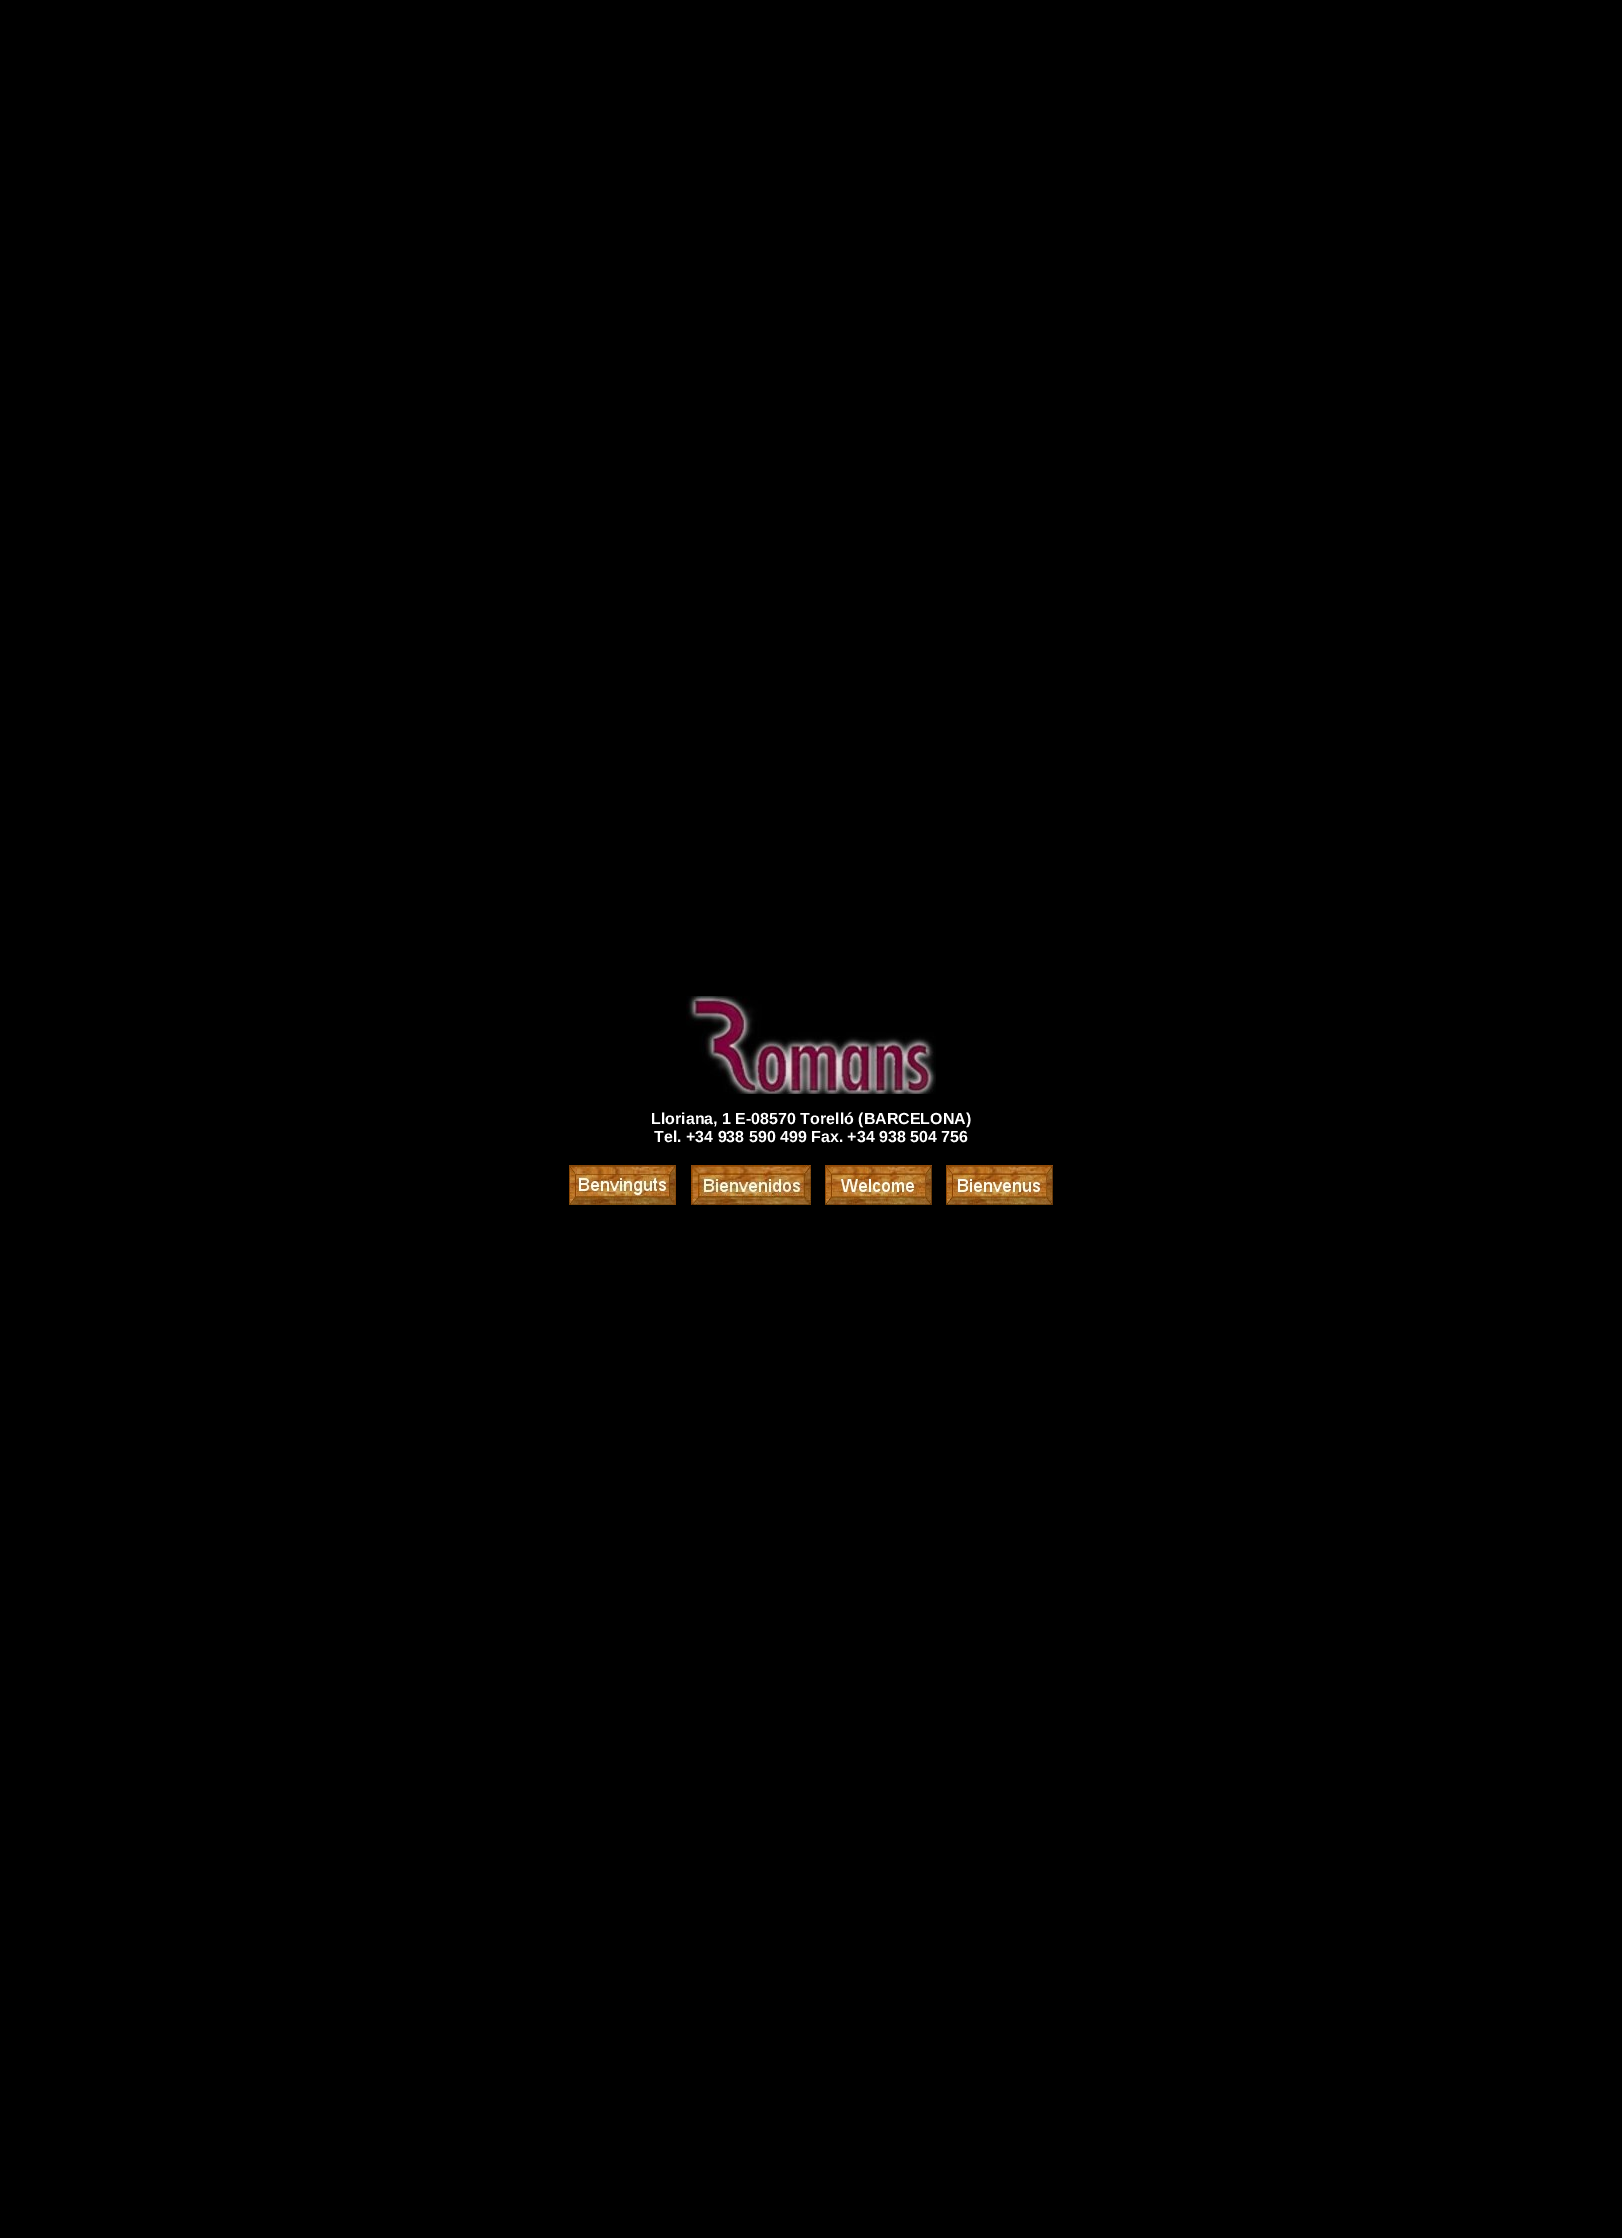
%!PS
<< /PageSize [1622 2238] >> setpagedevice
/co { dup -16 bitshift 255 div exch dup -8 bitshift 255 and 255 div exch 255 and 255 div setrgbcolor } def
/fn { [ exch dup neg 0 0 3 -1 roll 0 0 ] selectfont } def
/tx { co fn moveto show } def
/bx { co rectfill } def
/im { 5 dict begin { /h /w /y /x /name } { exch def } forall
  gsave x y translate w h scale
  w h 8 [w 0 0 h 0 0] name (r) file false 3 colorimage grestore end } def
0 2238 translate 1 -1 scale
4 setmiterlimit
0 0 1622 2238 16#000000 bx
(media/1.raw) 686 996 250 98 im
(media/2.raw) 569 1165 107 40 im
(media/3.raw) 691 1165 120 40 im
(media/4.raw) 825 1165 107 40 im
(media/5.raw) 946 1165 107 40 im
(Lloriana, 1 E-08570 Torelló \(BARCELONA\)) 651 1124 /LiberationSans-Bold 16 16#FFFFFF tx
(Tel. +34 938 590 499 Fax. +34 938 504 756) 654 1142 /LiberationSans-Bold 16 16#FFFFFF tx
showpage
